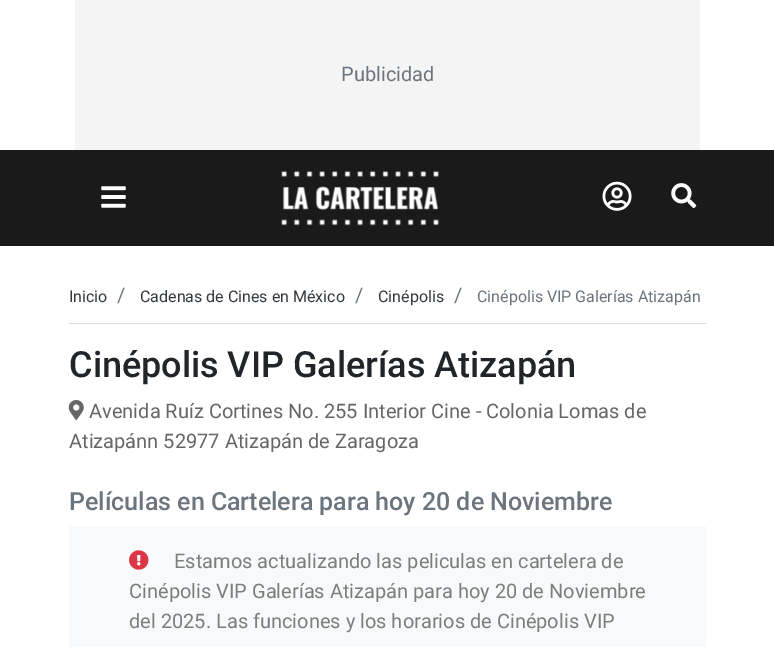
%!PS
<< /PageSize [774 647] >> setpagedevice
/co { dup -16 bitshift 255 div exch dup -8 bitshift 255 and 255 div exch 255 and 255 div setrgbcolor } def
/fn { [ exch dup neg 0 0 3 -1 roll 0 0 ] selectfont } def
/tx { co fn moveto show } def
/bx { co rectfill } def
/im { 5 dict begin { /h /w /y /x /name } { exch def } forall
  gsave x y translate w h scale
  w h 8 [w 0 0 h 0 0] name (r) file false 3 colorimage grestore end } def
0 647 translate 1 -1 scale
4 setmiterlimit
0 0 774 647 16#FFFFFF bx
75 0 625 150 16#F4F4F4 bx
0 150 774 96 16#1A1A1A bx
(media/1.raw) 101 186 25 22 im
(media/2.raw) 281 171 158 55 im
(media/3.raw) 602 181 30 30 im
(media/4.raw) 671 183 26 26 im
69 323 637 1 16#DADADA bx
(media/5.raw) 68 400 16 20 im
69 526 637 121 16#F8F9FA bx
(media/6.raw) 129 550 20 20 im
(Publicidad) 341 81 /Roboto-Regular 20 16#6C757D tx
(Inicio) 69 302 /Roboto-Regular 16 16#343A40 tx
(/) 117 302 /Roboto-Regular 20 16#6C757D tx
(Cadenas de Cines en México) 140 302 /Roboto-Regular 16 16#343A40 tx
(/) 355 302 /Roboto-Regular 20 16#6C757D tx
(Cinépolis) 378 302 /Roboto-Regular 16 16#343A40 tx
(/) 454 302 /Roboto-Regular 20 16#6C757D tx
(Cinépolis VIP Galerías Atizapán) 477 302 /Roboto-Regular 16 16#6C757D tx
(Cinépolis VIP Galerías Atizapán) 69 377 /Roboto-Medium 36 16#212529 tx
(Avenida Ruíz Cortines No. 255 Interior Cine - Colonia Lomas de) 89 418 /Roboto-Regular 20 16#666666 tx
(Atizapánn 52977 Atizapán de Zaragoza) 69 448 /Roboto-Regular 20 16#666666 tx
(Películas en Cartelera para hoy 20 de Noviembre) 69 510 /Roboto-Medium 25 16#6C757D tx
(Estamos actualizando las peliculas en cartelera de) 174 568 /Roboto-Regular 20 16#7C7D7D tx
(Cinépolis VIP Galerías Atizapán para hoy 20 de Noviembre) 129 598 /Roboto-Regular 20 16#7C7D7D tx
(del 2025. Las funciones y los horarios de Cinépolis VIP) 129 628 /Roboto-Regular 20 16#7C7D7D tx
showpage
